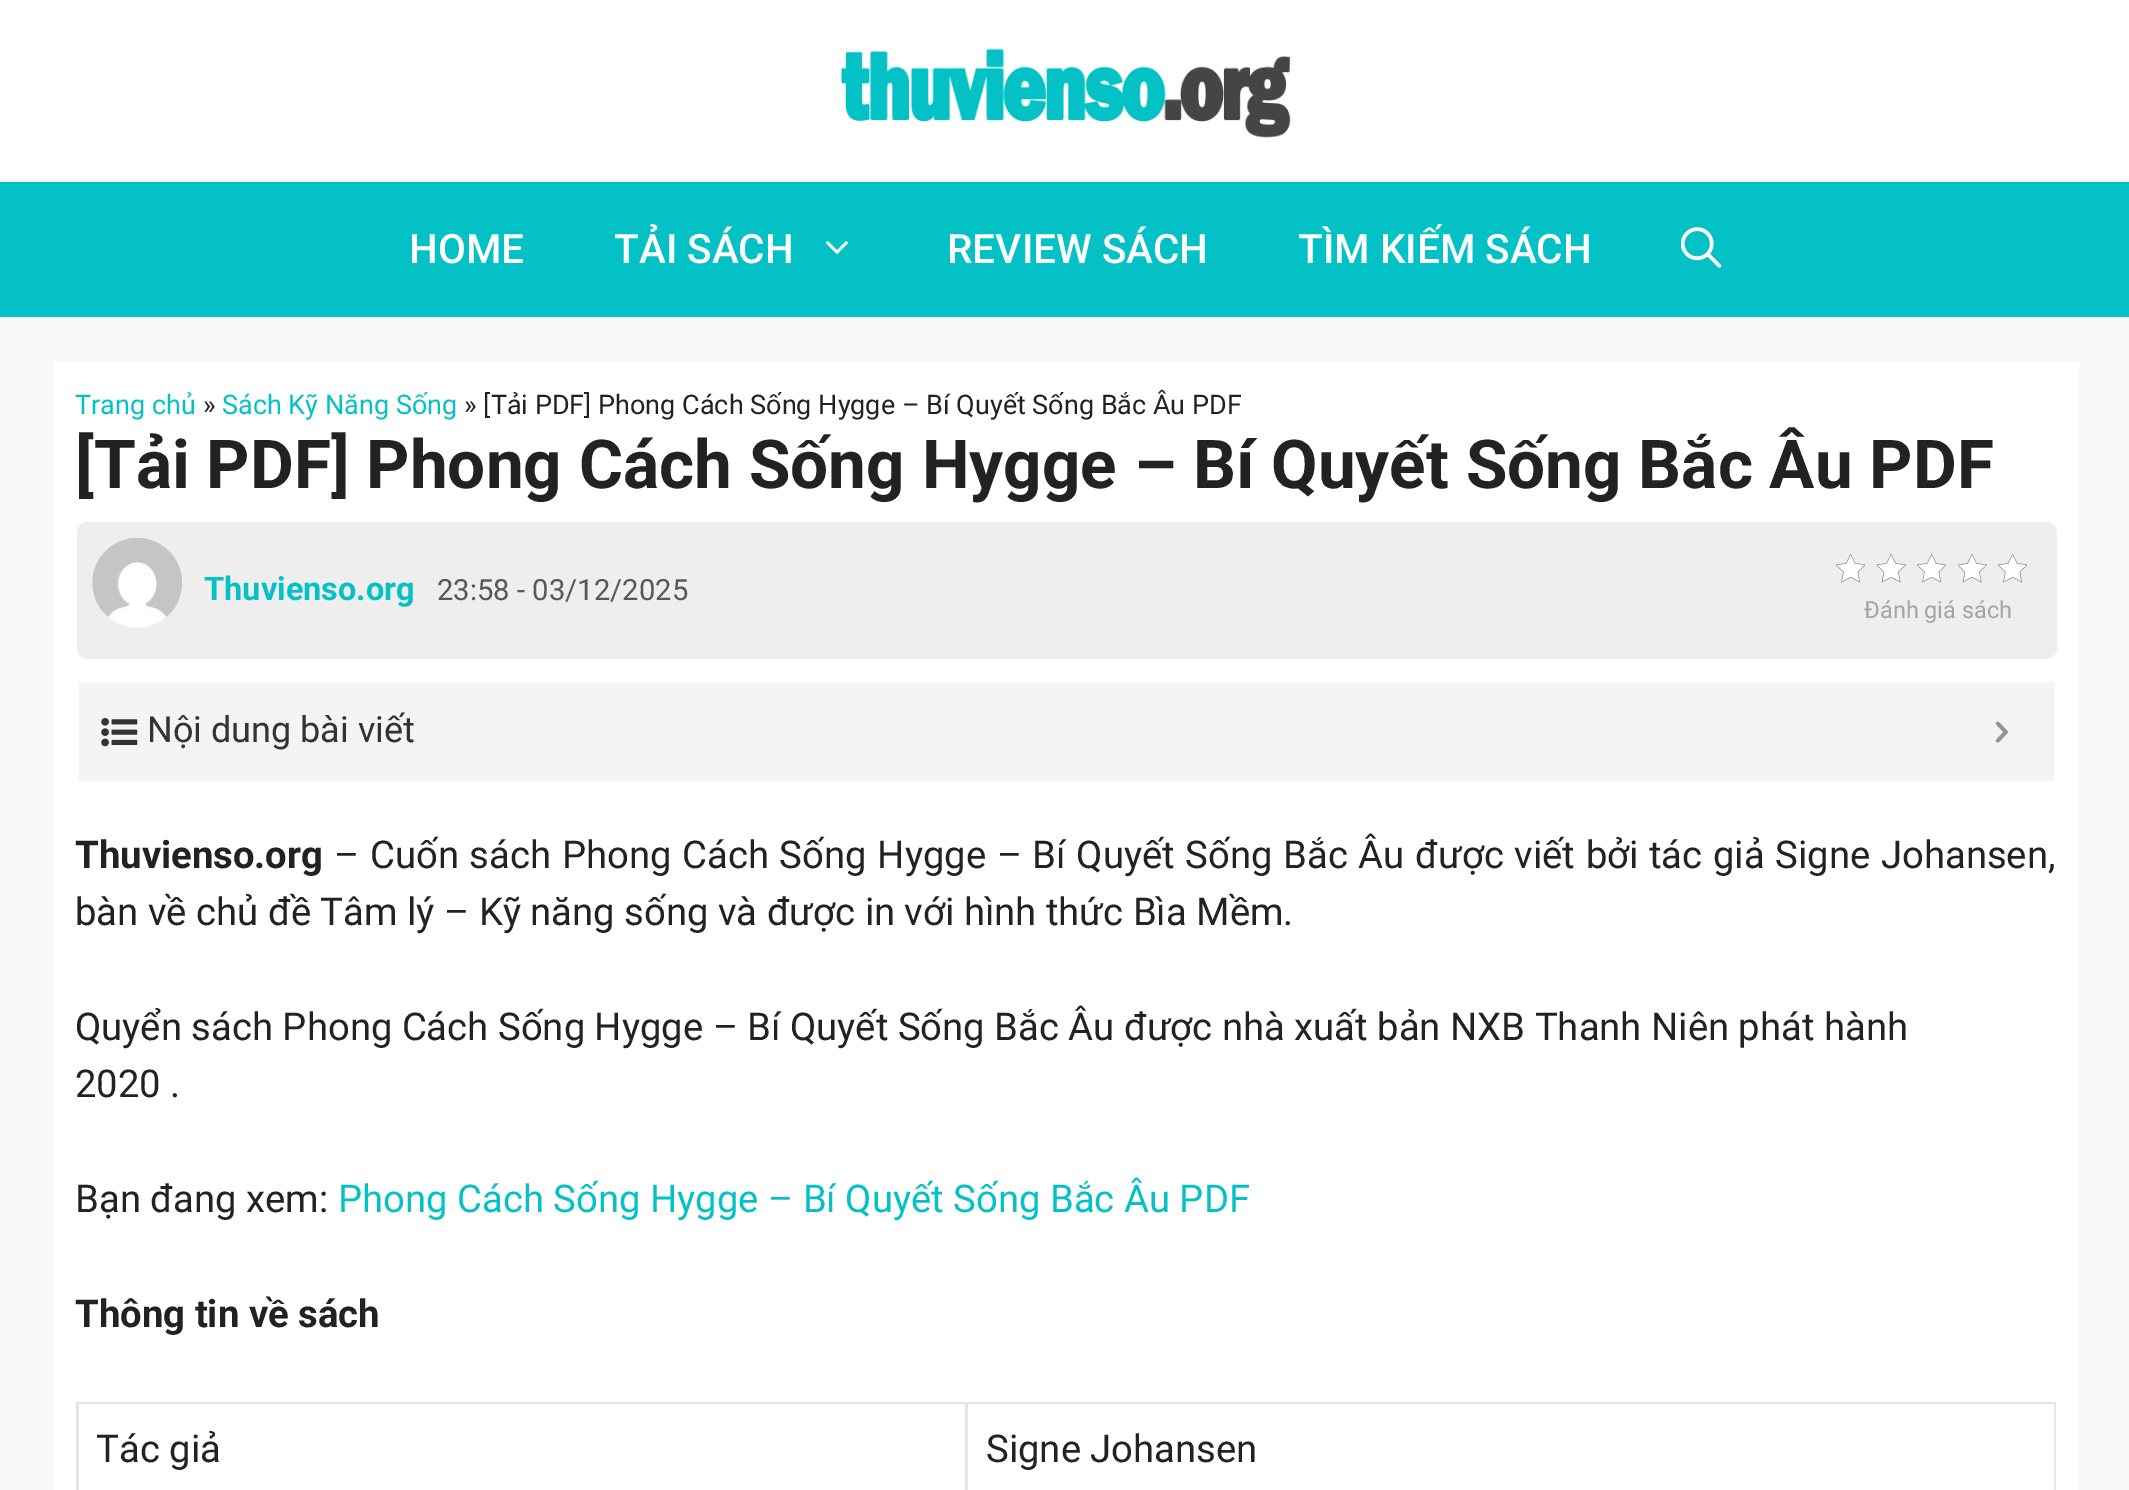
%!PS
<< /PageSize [2129 1490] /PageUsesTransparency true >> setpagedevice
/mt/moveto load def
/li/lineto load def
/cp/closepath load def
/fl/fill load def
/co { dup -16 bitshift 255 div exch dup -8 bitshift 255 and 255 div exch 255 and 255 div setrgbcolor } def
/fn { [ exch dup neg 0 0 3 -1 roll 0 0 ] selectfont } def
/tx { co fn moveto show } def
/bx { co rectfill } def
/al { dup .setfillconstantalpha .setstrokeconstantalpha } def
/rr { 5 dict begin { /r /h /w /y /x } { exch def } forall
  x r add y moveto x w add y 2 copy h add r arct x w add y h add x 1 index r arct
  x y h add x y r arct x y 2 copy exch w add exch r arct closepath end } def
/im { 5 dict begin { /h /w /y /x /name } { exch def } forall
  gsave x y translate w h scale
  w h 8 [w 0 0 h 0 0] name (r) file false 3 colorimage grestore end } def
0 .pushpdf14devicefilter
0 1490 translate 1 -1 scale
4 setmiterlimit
0 0 2129 1490 16#F7F8F9 bx
0 0 2129 182 16#FFFFFF bx
(media/1.raw) 841 48 450 90 im
0 182 2129 135 16#04C1C6 bx
(media/2.raw) 825 241 24 13 im
(media/3.raw) 1681 227 40 41 im
54 362 2025 1128 16#FFFFFF bx
16#EEEEEE co
77 522 1980 137 11 rr fl
(media/4.raw) 92 538 90 90 im
(media/5.raw) 1836 554 29 29 im
(media/6.raw) 1877 554 29 29 im
(media/5.raw) 1917 554 29 29 im
(media/6.raw) 1958 554 29 29 im
(media/5.raw) 1998 554 29 29 im
79 682 1975 99 16#F4F4F4 bx
(media/7.raw) 101 718 37 29 im
(media/8.raw) 1995 721 13 22 im
16#E6E6E6 co
76 1402 mt 2056 1402 li 2056 1404 li 79 1404 li cp fl
0.1 al
16#000000 co
76 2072 mt 76 1402 li 79 1404 li 79 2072 li cp fl
1 al
16#E6E6E6 co
968 1404 mt 968 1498 li 965 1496 li 965 1404 li cp fl
2056 1404 mt 2056 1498 li 2054 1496 li 2054 1404 li cp fl
(HOME) 409 263 /Roboto-Medium 40.5 16#FFFFFF tx
(TẢI SÁCH) 614 263 /Roboto-Medium 40.5 16#FFFFFF tx
(REVIEW SÁCH) 947 263 /Roboto-Medium 40.5 16#FFFFFF tx
(TÌM KIẾM SÁCH) 1298 263 /Roboto-Medium 40.5 16#FFFFFF tx
(Trang chủ) 75 414 /Roboto-Regular 27 16#04C1C6 tx
(») 203 414 /Roboto-Regular 27 16#222222 tx
(Sách Kỹ Năng Sống) 222 414 /Roboto-Regular 27 16#04C1C6 tx
(» [Tải PDF] Phong Cách Sống Hygge – Bí Quyết Sống Bắc Âu PDF) 464 414 /Roboto-Regular 27 16#222222 tx
([Tải PDF] Phong Cách Sống Hygge – Bí Quyết Sống Bắc Âu PDF) 75 488 /Roboto-Bold 67.5 16#222222 tx
(Thuvienso.org) 204 600 /Roboto-Bold 32.5 16#04C1C6 tx
(23:58 - 03/12/2025) 437 600 /Roboto-Regular 29.25 16#575760 tx
(Đánh giá sách) 1864 618 /Roboto-Regular 23.5 16#A3A3A7 tx
(Nội dung bài viết) 147 742 /Roboto-Regular 36 16#333333 tx
(Thuvienso.org) 75 868 /Roboto-Bold 38.25 16#222222 tx
/Roboto-Regular 38.25 fn
334 868 mt 1.2 0 32 (– Cuốn sách Phong Cách Sống Hygge – Bí Quyết Sống Bắc Âu được viết bởi tác giả Signe Johansen,) widthshow
(bàn về chủ đề Tâm lý – Kỹ năng sống và được in với hình thức Bìa Mềm.) 75 925 /Roboto-Regular 38.25 16#222222 tx
(Quyển sách Phong Cách Sống Hygge – Bí Quyết Sống Bắc Âu được nhà xuất bản NXB Thanh Niên phát hành) 75 1040 /Roboto-Regular 38.25 16#222222 tx
(2020 .) 75 1097 /Roboto-Regular 38.25 16#222222 tx
(Bạn đang xem:) 75 1212 /Roboto-Regular 38.25 16#222222 tx
(Phong Cách Sống Hygge – Bí Quyết Sống Bắc Âu PDF) 338 1212 /Roboto-Regular 38.25 16#04C1C6 tx
(Thông tin về sách) 75 1327 /Roboto-Bold 38.25 16#222222 tx
(Tác giả) 96 1462 /Roboto-Regular 38.25 16#222222 tx
(Signe Johansen) 986 1462 /Roboto-Regular 38.25 16#222222 tx
.poppdf14devicefilter showpage
